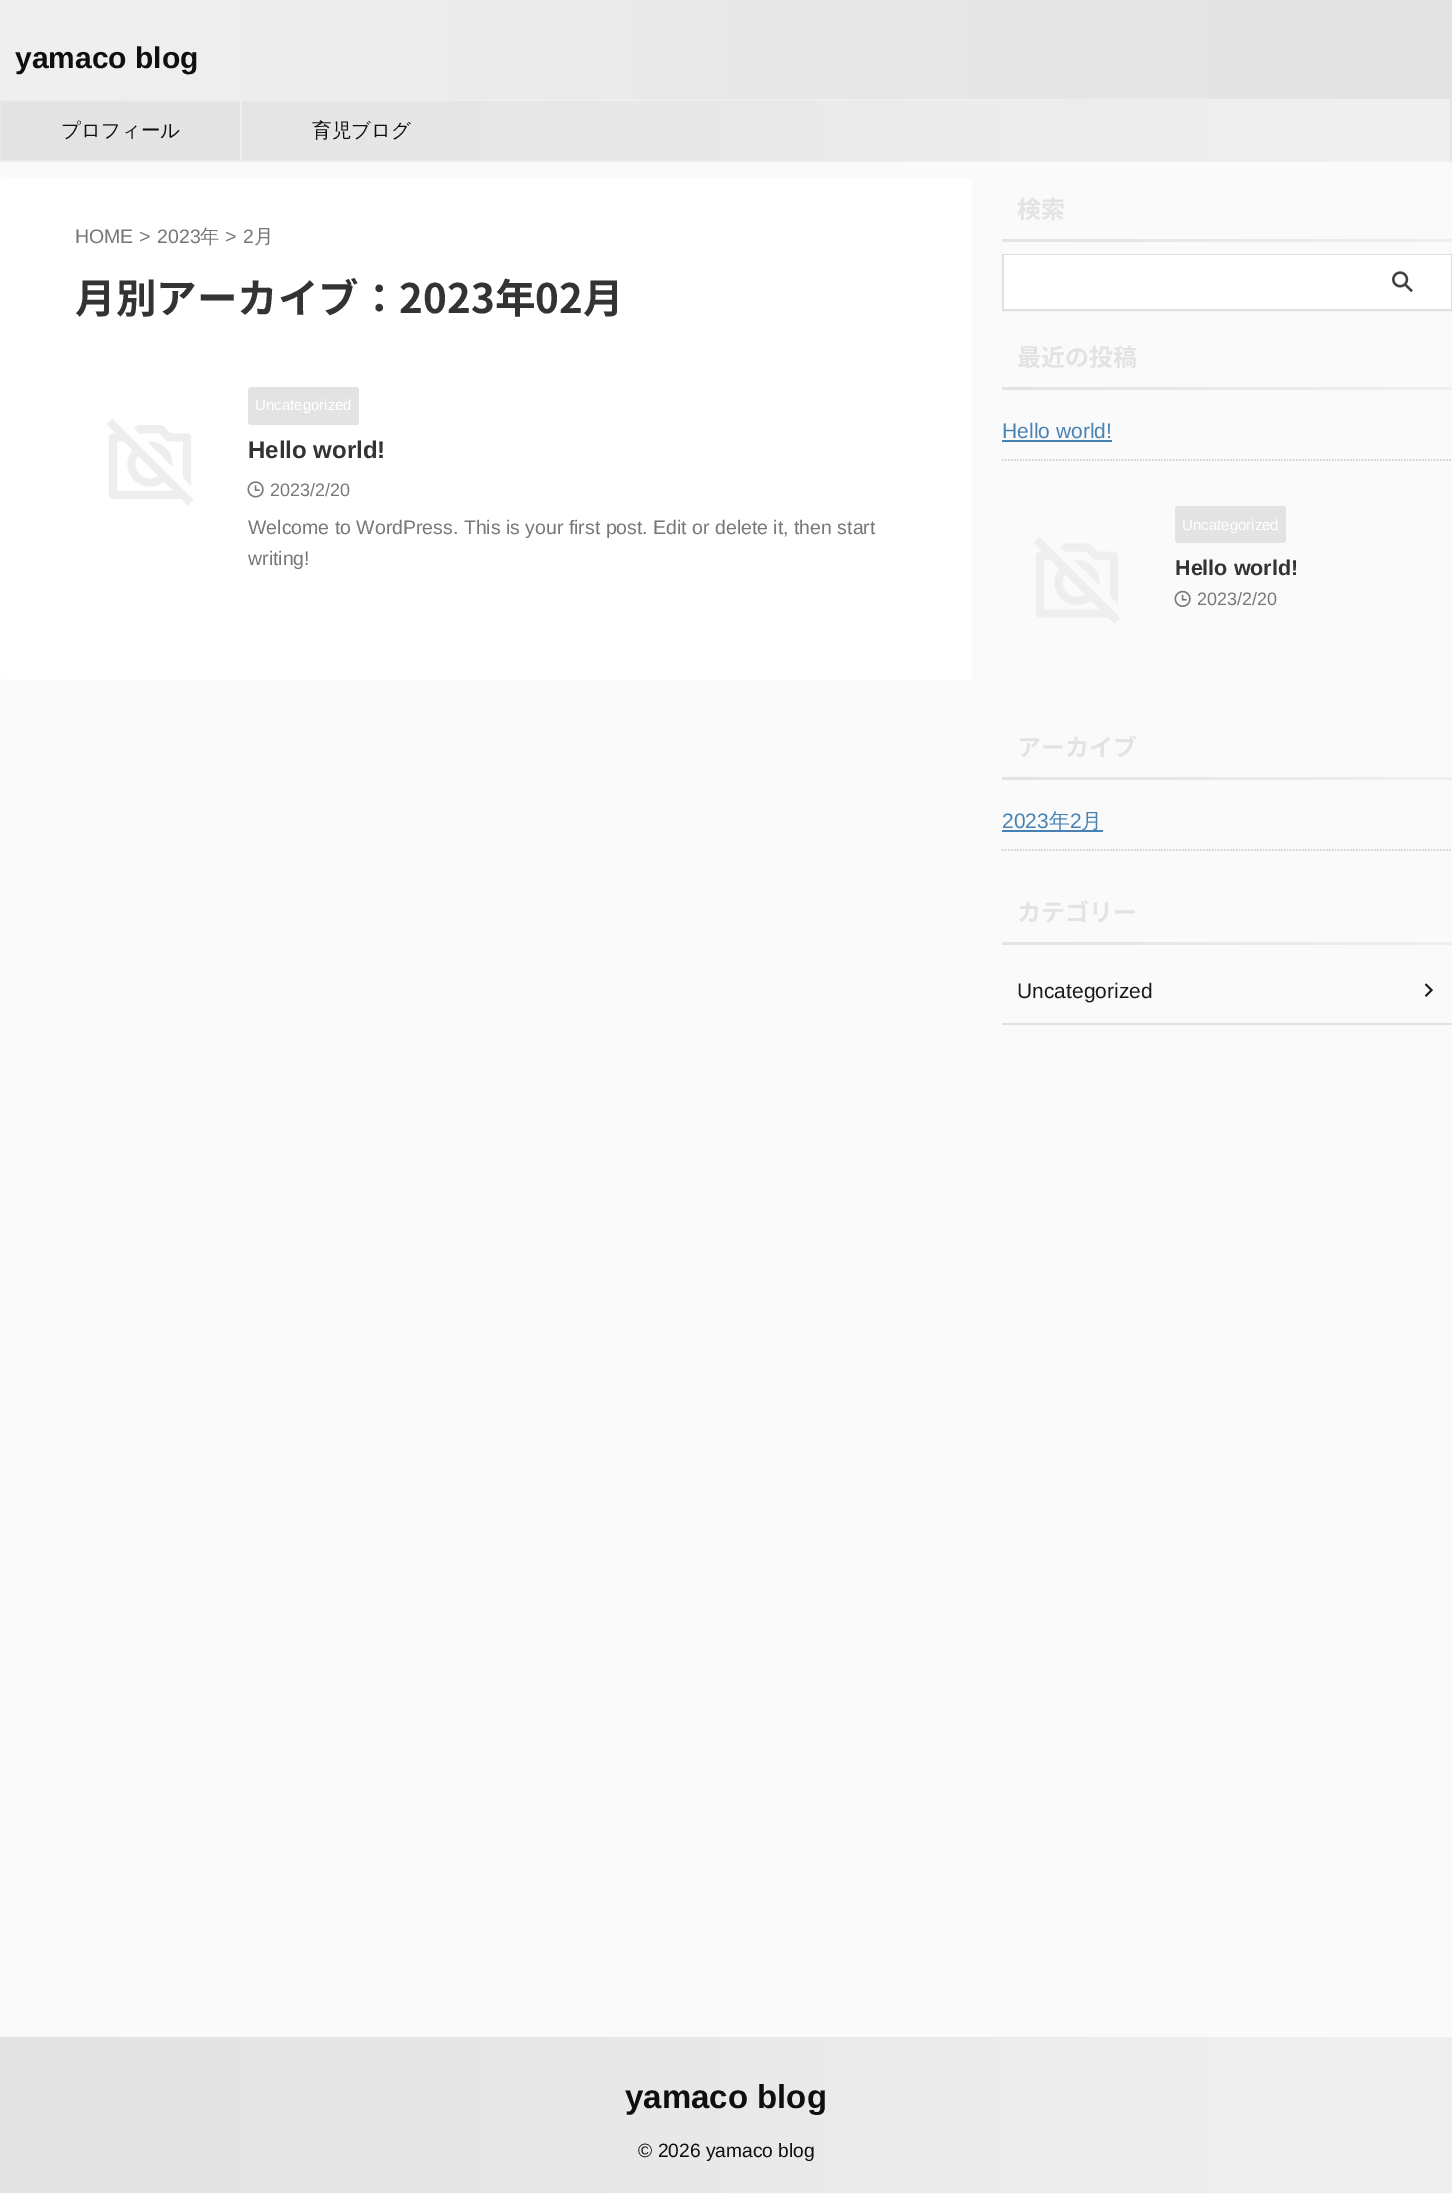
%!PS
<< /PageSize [1452 2194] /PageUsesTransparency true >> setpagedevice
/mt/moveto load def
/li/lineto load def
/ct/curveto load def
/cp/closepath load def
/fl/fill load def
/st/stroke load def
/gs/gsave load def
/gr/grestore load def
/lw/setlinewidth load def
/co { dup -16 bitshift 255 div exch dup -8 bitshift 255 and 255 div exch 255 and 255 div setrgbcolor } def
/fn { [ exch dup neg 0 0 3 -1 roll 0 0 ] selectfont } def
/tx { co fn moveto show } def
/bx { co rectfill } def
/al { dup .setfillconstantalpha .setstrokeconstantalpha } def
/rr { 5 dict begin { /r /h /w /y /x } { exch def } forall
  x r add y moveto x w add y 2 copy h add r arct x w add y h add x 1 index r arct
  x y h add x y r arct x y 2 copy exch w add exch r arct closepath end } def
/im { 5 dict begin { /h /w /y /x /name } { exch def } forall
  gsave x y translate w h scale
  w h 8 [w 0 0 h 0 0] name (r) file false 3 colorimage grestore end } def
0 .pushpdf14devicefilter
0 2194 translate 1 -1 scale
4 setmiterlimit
0 0 1452 2194 16#FAFAFA bx
gs 0 0 mt 1452 0 li 1452 99 li 0 99 li cp clip newpath
<< /ShadingType 2 /ColorSpace /DeviceRGB /Coords [1452 50 0 49] /Extend [true true] /Function << /FunctionType 2 /Domain [0 1] /C0 [.89 .89 .89] /C1 [.941 .941 .941] /N 1 >> >> shfill gr
gs 1.5 99 mt 2 99 li 2 162 li 1.5 162 li .5 162 0 161.5 0 160.5 ct 0 100.5 li 0 99.5 .5 99 1.5 99 ct cp clip newpath
<< /ShadingType 2 /ColorSpace /DeviceRGB /Coords [1.5 131 -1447 130] /Extend [true true] /Function << /FunctionType 2 /Domain [0 1] /C0 [.941 .941 .941] /C1 [.89 .89 .89] /N 1 >> >> shfill gr
gs 2 99 mt 1451 99 li 1451 162 li 2 162 li cp clip newpath
<< /ShadingType 2 /ColorSpace /DeviceRGB /Coords [1451 131 1.5 130] /Extend [true true] /Function << /FunctionType 2 /Domain [0 1] /C0 [.941 .941 .941] /C1 [.89 .89 .89] /N 1 >> >> shfill gr
gs 1451 99 mt 1452 99 li 1452 162 li 1451 162 li cp clip newpath
<< /ShadingType 2 /ColorSpace /DeviceRGB /Coords [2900 131 1451 130] /Extend [true true] /Function << /FunctionType 2 /Domain [0 1] /C0 [.941 .941 .941] /C1 [.89 .89 .89] /N 1 >> >> shfill gr
0.75 al
1 99 1060 2 16#F0F0F0 bx
1450 100 1 61 16#E3E3E3 bx
1 160 1450 2 16#F0F0F0 bx
1 al
0 100 2 61 16#E6E6E6 bx
240 101 2 60 16#F0F0F0 bx
16#FFFFFF co
0 177 972 503 6 rr fl
(media/1.raw) 106 418 88 88 im
16#E3E3E3 co
248 387 111 38 3 rr fl
(media/2.raw) 247 481 17 17 im
gs 1002 239 mt 1452 239 li 1452 242 li 1002 242 li cp clip newpath
<< /ShadingType 2 /ColorSpace /DeviceRGB /Coords [1452 240 1002 240] /Extend [true true] /Function << /FunctionType 2 /Domain [0 1] /C0 [.941 .941 .941] /C1 [.89 .89 .89] /N 1 >> >> shfill gr
16#E0E0E0 co
2 lw
1003 255 448 55 rectstroke
1004 255 447 54 16#FFFFFF bx
(media/3.raw) 1392 271 21 22 im
gs 1002 387 mt 1452 387 li 1452 390 li 1002 390 li cp clip newpath
<< /ShadingType 2 /ColorSpace /DeviceRGB /Coords [1452 389 1002 389] /Extend [true true] /Function << /FunctionType 2 /Domain [0 1] /C0 [.941 .941 .941] /C1 [.89 .89 .89] /N 1 >> >> shfill gr
16#CCCCCC co
1.5 lw
[1.5 1.5] 0 setdash
1002 460 mt 1452 460 li st
1002 440 110 2 16#4682B4 bx
(media/4.raw) 1034 537 86 87 im
16#E3E3E3 co
1175 506 111 37 3 rr fl
(media/5.raw) 1174 590 17 17 im
gs 1002 777 mt 1452 777 li 1452 780 li 1002 780 li cp clip newpath
<< /ShadingType 2 /ColorSpace /DeviceRGB /Coords [1452 779 1002 779] /Extend [true true] /Function << /FunctionType 2 /Domain [0 1] /C0 [.941 .941 .941] /C1 [.89 .89 .89] /N 1 >> >> shfill gr
16#CCCCCC co
1002 850 mt 1452 850 li st
1002 830 101 2 16#4682B4 bx
gs 1002 942 mt 1452 942 li 1452 945 li 1002 945 li cp clip newpath
<< /ShadingType 2 /ColorSpace /DeviceRGB /Coords [1452 944 1002 944] /Extend [true true] /Function << /FunctionType 2 /Domain [0 1] /C0 [.941 .941 .941] /C1 [.89 .89 .89] /N 1 >> >> shfill gr
1002 1023 450 2 16#E1E1E1 bx
(media/6.raw) 1424 983 9 14 im
gs 0 2037 mt 1452 2037 li 1452 2193 li 0 2193 li cp clip newpath
<< /ShadingType 2 /ColorSpace /DeviceRGB /Coords [1452 2115 0 2115] /Extend [true true] /Function << /FunctionType 2 /Domain [0 1] /C0 [.941 .941 .941] /C1 [.89 .89 .89] /N 1 >> >> shfill gr
(yamaco blog) 15 68 /LiberationSans-Bold 30 16#0F0F0F tx
(プロフィール) 61 137 /WenQuanYiZenHei-Medium 19.5 16#0F0F0F tx
(育児ブログ) 312 137 /WenQuanYiZenHei-Medium 19.5 16#0F0F0F tx
(HOME >) 75 243 /LiberationSans-Regular 19.5 16#777777 tx
(2023) 157 243 /LiberationSans-Regular 19.5 16#777777 tx
(年) 200 243 /WenQuanYiZenHei-Medium 19.5 16#777777 tx
(>) 225 243 /LiberationSans-Regular 19.5 16#777777 tx
(2) 243 243 /LiberationSans-Regular 19.5 16#777777 tx
(月) 254 243 /WenQuanYiZenHei-Medium 19.5 16#777777 tx
(月別アーカイブ：2023年02月) 75 313 /NotoSansJP-Bold 40.5 16#333333 tx
(Uncategorized) 255 410 /LiberationSans-Regular 15 16#FFFFFF tx
(Hello world!) 248 458 /LiberationSans-Bold 24 16#333333 tx
(2023/2/20) 270 496 /LiberationSans-Regular 18 16#777777 tx
(Welcome to WordPress. This is your first post. Edit or delete it, then start) 248 534 /LiberationSans-Regular 19.5 16#777777 tx
(writing!) 248 565 /LiberationSans-Regular 19.5 16#777777 tx
(検索) 1017 218 /NotoSansJP-Bold 24 16#E3E3E3 tx
(最近の投稿) 1017 366 /NotoSansJP-Bold 24 16#E3E3E3 tx
(Hello world!) 1002 438 /LiberationSans-Regular 21 16#4682B4 tx
(Uncategorized) 1182 530 /LiberationSans-Regular 15 16#FFFFFF tx
(Hello world!) 1175 575 /LiberationSans-Bold 21.5 16#333333 tx
(2023/2/20) 1197 605 /LiberationSans-Regular 18 16#777777 tx
(アーカイブ) 1017 756 /NotoSansJP-Bold 24 16#E3E3E3 tx
(2023) 1002 828 /LiberationSans-Regular 21 16#4682B4 tx
(年) 1049 828 /WenQuanYiZenHei-Medium 21 16#4682B4 tx
(2) 1070 828 /LiberationSans-Regular 21 16#4682B4 tx
(月) 1081 828 /WenQuanYiZenHei-Medium 21 16#4682B4 tx
(カテゴリー) 1017 921 /NotoSansJP-Bold 24 16#E3E3E3 tx
(Uncategorized) 1017 998 /LiberationSans-Regular 21 16#1A1A1A tx
(yamaco blog) 625 2108 /LiberationSans-Bold 33 16#0F0F0F tx
(© 2026 yamaco blog) 638 2157 /LiberationSans-Regular 19.25 16#0F0F0F tx
.poppdf14devicefilter showpage
